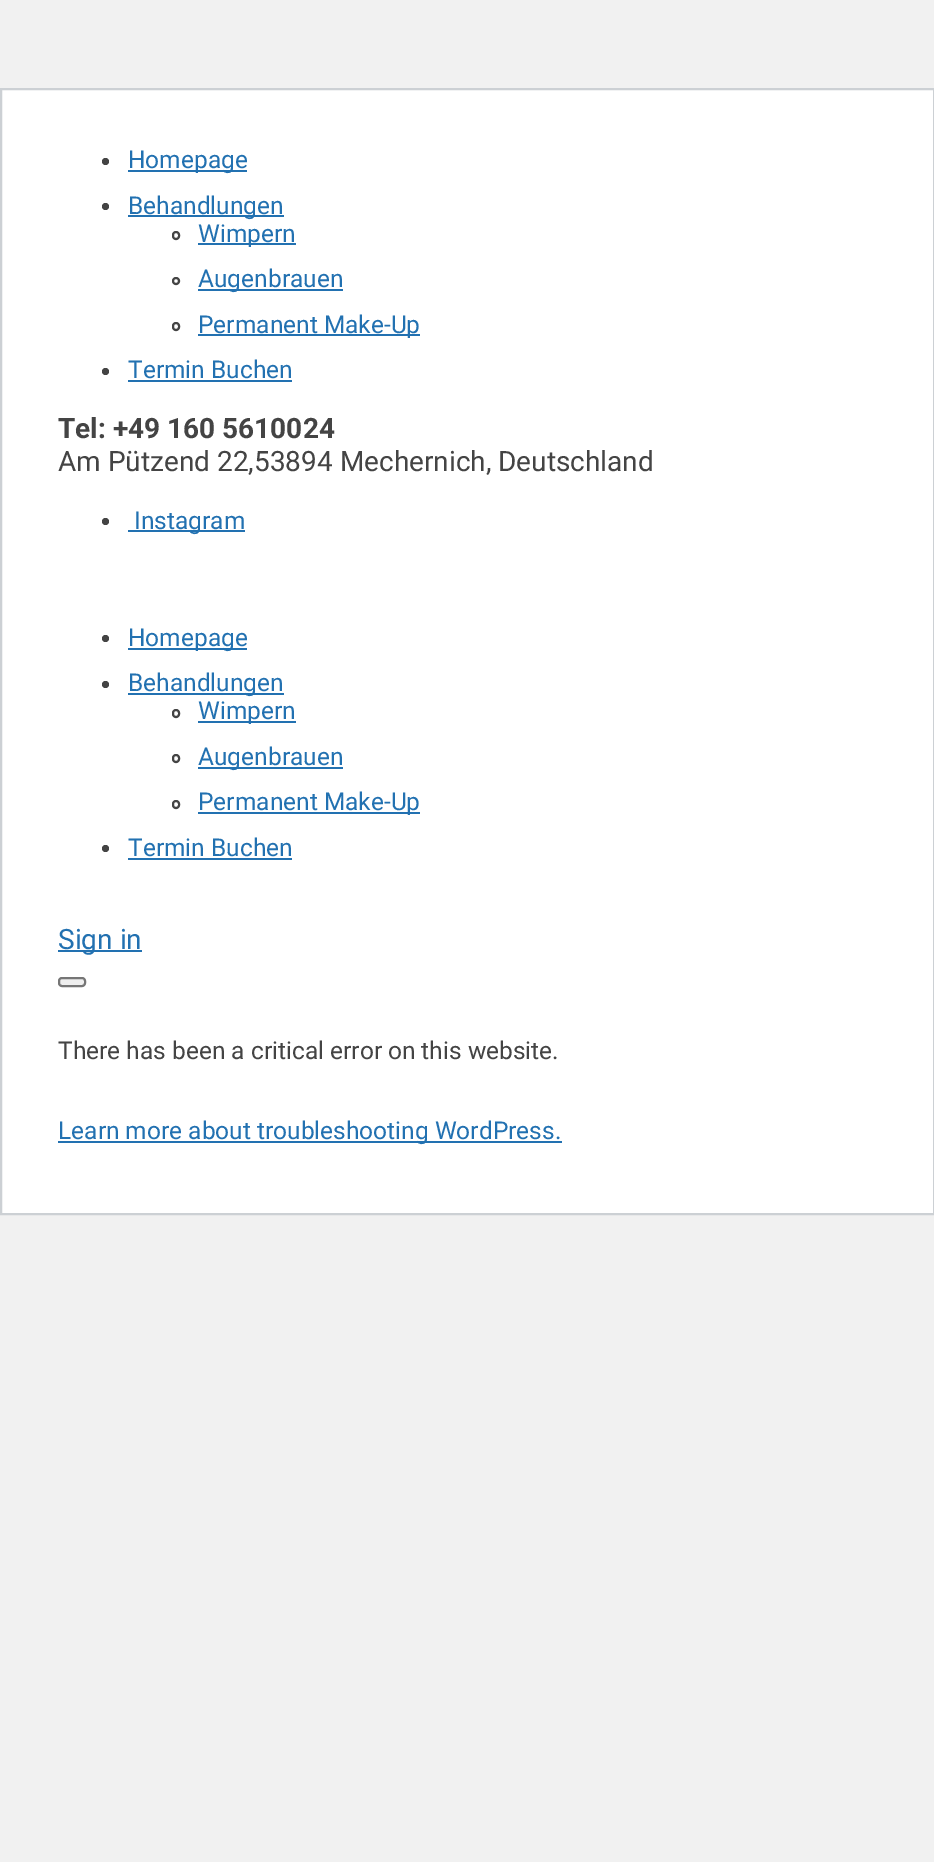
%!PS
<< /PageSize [934 1862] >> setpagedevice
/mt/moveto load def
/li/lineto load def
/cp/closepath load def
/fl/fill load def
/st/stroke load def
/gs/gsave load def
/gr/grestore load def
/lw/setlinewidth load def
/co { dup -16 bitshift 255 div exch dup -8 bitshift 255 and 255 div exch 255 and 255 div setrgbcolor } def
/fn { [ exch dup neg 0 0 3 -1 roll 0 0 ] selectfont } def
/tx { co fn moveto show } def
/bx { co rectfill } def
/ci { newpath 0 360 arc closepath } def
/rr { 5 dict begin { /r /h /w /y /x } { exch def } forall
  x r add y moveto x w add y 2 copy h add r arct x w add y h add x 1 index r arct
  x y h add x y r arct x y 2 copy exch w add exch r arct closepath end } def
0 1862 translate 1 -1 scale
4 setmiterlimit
0 0 934 1862 16#F1F1F1 bx
16#FFFFFF co
1 89 mt 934 89 li 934 1214 li 1 1214 li cp gs fl gr
16#CCD0D4 co
2 lw
st
16#444444 co
105.5 161.5 3.5 ci fl
128 170 119 2 16#2271B1 bx
16#444444 co
105.5 206.5 3.5 ci fl
128 215 156 2 16#2271B1 bx
16#444444 co
173 232 6 7 3 rr st
198 243 98 2 16#2271B1 bx
16#444444 co
176 281 3 ci st
198 289 145 2 16#2271B1 bx
16#444444 co
173 323 6 7 3 rr st
198 334 222 2 16#2271B1 bx
16#444444 co
105.5 371.5 3.5 ci fl
128 380 164 2 16#2271B1 bx
16#444444 co
105.5 521.5 3.5 ci fl
128 530 117 2 16#2271B1 bx
16#444444 co
105.5 638.5 3.5 ci fl
128 648 119 2 16#2271B1 bx
16#444444 co
105.5 684.5 3.5 ci fl
128 693 156 2 16#2271B1 bx
16#444444 co
173 710 6 7 3 rr st
198 721 98 2 16#2271B1 bx
16#444444 co
173 755 6 7 3 rr st
198 767 145 2 16#2271B1 bx
16#444444 co
173 801 6 7 3 rr st
198 812 222 2 16#2271B1 bx
16#444444 co
105.5 848.5 3.5 ci fl
128 858 164 2 16#2271B1 bx
58 950 84 2 16#2271B1 bx
16#EFEFEF co
59 978 26 8 3 rr gs fl gr
16#767676 co
st
58 1141 504 2 16#2271B1 bx
(Homepage) 128 168 /Roboto-Regular 24.5 16#2271B1 tx
(Behandlungen) 128 214 /Roboto-Regular 24.5 16#2271B1 tx
(Wimpern) 198 242 /Roboto-Regular 24.5 16#2271B1 tx
(Augenbrauen) 198 287 /Roboto-Regular 24.5 16#2271B1 tx
(Permanent Make-Up) 198 333 /Roboto-Regular 24.5 16#2271B1 tx
(Termin Buchen) 128 378 /Roboto-Regular 24.5 16#2271B1 tx
(Tel: +49 160 5610024) 58 438 /Roboto-Bold 28 16#444444 tx
(Am Pützend 22,53894 Mechernich, Deutschland) 58 471 /Roboto-Regular 28 16#444444 tx
(Instagram) 134 529 /Roboto-Regular 24.5 16#2271B1 tx
(Homepage) 128 646 /Roboto-Regular 24.5 16#2271B1 tx
(Behandlungen) 128 691 /Roboto-Regular 24.5 16#2271B1 tx
(Wimpern) 198 719 /Roboto-Regular 24.5 16#2271B1 tx
(Augenbrauen) 198 765 /Roboto-Regular 24.5 16#2271B1 tx
(Permanent Make-Up) 198 810 /Roboto-Regular 24.5 16#2271B1 tx
(Termin Buchen) 128 856 /Roboto-Regular 24.5 16#2271B1 tx
(Sign in) 58 949 /Roboto-Regular 28 16#2271B1 tx
(There has been a critical error on this website.) 58 1059 /Roboto-Regular 24.5 16#444444 tx
(Learn more about troubleshooting WordPress.) 58 1139 /Roboto-Regular 24.5 16#2271B1 tx
showpage
